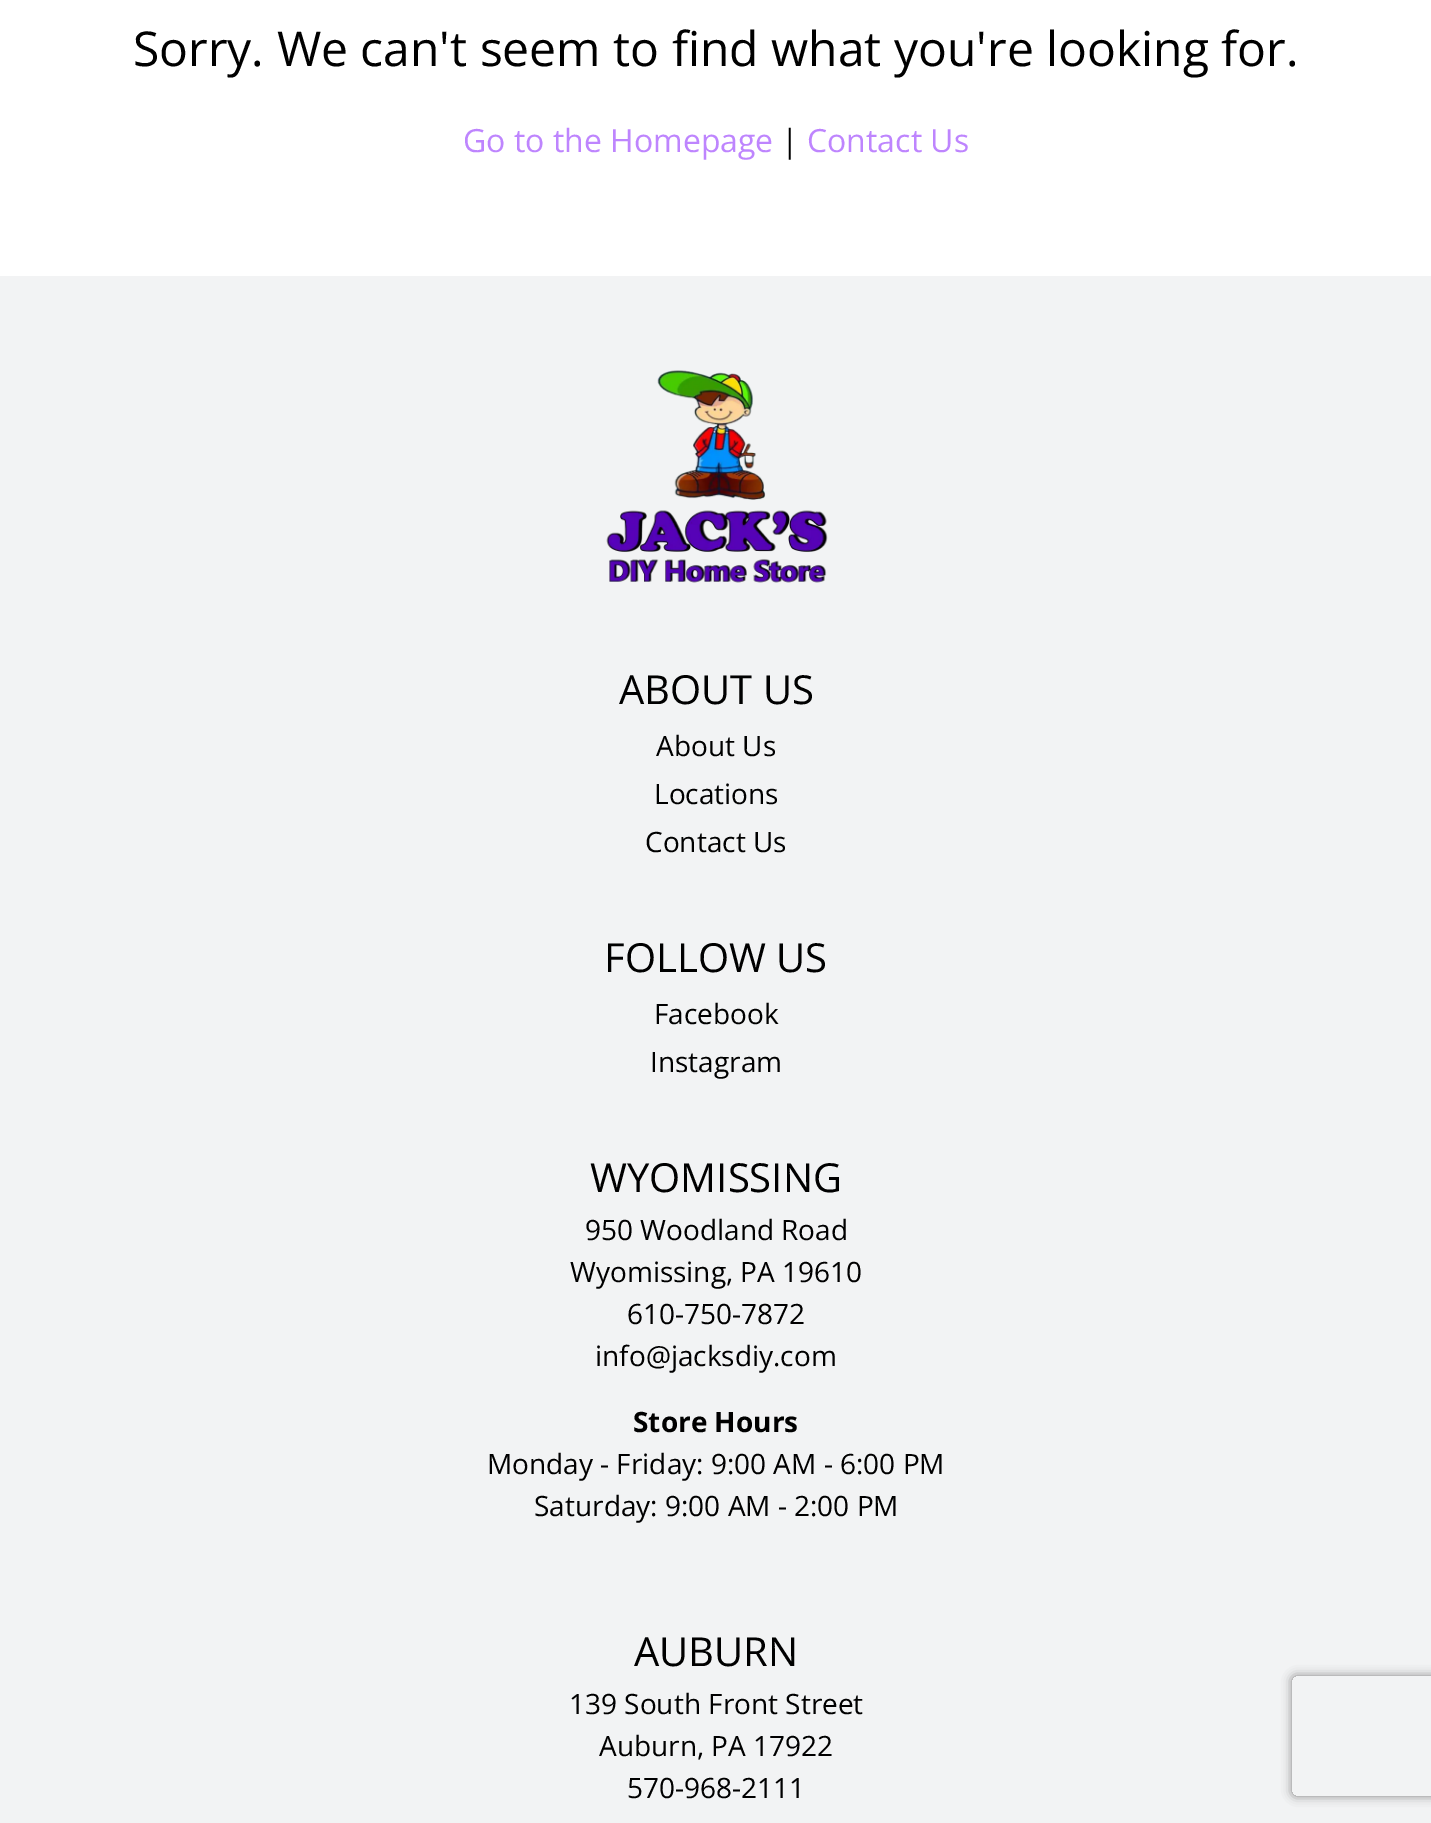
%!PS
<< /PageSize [1431 1823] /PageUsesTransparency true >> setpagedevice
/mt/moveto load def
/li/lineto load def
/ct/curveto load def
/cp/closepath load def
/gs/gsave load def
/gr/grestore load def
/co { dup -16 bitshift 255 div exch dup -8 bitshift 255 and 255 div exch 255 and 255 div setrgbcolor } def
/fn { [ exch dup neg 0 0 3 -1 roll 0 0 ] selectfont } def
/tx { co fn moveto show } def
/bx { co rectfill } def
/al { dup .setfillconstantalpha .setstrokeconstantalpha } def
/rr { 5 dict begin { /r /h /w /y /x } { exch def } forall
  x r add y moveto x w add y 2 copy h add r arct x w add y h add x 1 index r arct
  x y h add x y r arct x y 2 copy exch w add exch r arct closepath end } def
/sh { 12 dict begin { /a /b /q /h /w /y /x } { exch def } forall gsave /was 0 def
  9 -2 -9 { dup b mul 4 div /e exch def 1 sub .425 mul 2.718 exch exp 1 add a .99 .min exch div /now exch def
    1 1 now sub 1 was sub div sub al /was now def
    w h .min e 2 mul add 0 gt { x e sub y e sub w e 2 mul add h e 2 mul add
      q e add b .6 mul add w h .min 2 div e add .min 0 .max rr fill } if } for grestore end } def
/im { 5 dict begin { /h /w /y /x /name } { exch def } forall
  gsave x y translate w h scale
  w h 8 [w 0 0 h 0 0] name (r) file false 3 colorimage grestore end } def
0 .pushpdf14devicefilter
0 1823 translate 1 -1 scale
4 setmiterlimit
0 0 1431 1823 16#FFFFFF bx
0 276 1431 1547 16#F2F3F4 bx
(media/1.raw) 606 370 222 213 im
gs
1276 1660 mt 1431 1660 li 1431 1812 li 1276 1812 li cp 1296 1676 mt 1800 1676 li 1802 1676 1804 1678 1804 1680 ct 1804 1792 li 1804 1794 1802 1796 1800 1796 ct 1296 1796 li 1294 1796 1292 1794 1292 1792 ct 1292 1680 li 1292 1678 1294 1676 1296 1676 ct cp eoclip newpath
16#808080 co
1292 1676 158 120 4 5 1 sh
gr
(Sorry. We can't seem to find what you're looking for.) 133 66 /OpenSans-Regular 48 16#000000 tx
(Go to the Homepage) 463 152 /OpenSans-Regular 32 16#BE85FE tx
(|) 781 152 /OpenSans-Regular 32 16#000000 tx
(Contact Us) 807 152 /OpenSans-Regular 32 16#BE85FE tx
(ABOUT US) 619 704 /OpenSans-Regular 40 16#000000 tx
(About Us) 656 756 /OpenSans-Regular 28 16#000000 tx
(Locations) 654 804 /OpenSans-Regular 28 16#000000 tx
(Contact Us) 645 852 /OpenSans-Regular 28 16#000000 tx
(FOLLOW US) 604 972 /OpenSans-Regular 40 16#000000 tx
(Facebook) 654 1024 /OpenSans-Regular 28 16#000000 tx
(Instagram) 650 1072 /OpenSans-Regular 28 16#000000 tx
(WYOMISSING) 590 1192 /OpenSans-Regular 40 16#000000 tx
(950 Woodland Road) 585 1240 /OpenSans-Regular 28 16#000000 tx
(Wyomissing, PA 19610) 570 1282 /OpenSans-Regular 28 16#000000 tx
(610-750-7872) 627 1324 /OpenSans-Regular 28 16#000000 tx
(info@jacksdiy.com) 595 1366 /OpenSans-Regular 28 16#000000 tx
(Store Hours) 633 1432 /OpenSans-Bold 28 16#000000 tx
(Monday - Friday: 9:00 AM - 6:00 PM) 487 1474 /OpenSans-Regular 28 16#000000 tx
(Saturday: 9:00 AM - 2:00 PM) 534 1516 /OpenSans-Regular 28 16#000000 tx
(AUBURN) 634 1666 /OpenSans-Regular 40 16#000000 tx
(139 South Front Street) 569 1714 /OpenSans-Regular 28 16#000000 tx
(Auburn, PA 17922) 599 1756 /OpenSans-Regular 28 16#000000 tx
(570-968-2111) 627 1798 /OpenSans-Regular 28 16#000000 tx
.poppdf14devicefilter showpage
